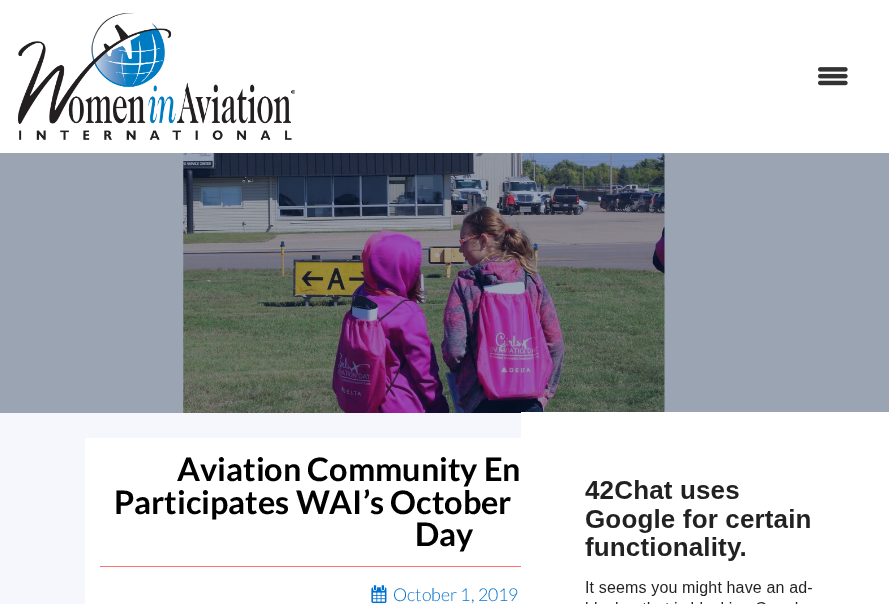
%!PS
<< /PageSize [889 604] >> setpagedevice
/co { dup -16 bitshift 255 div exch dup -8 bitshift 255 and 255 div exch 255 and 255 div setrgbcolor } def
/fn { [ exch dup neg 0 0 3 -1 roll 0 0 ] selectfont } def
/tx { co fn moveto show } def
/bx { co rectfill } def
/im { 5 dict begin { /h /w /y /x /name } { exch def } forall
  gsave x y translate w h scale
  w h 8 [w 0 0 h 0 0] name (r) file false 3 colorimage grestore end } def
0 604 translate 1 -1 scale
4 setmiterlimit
0 0 889 604 16#F5F7FC bx
0 0 889 153 16#FFFFFF bx
(media/1.raw) 18 13 277 127 im
(media/2.raw) 818 67 30 19 im
(media/3.raw) 0 153 889 260 im
85 438 436 166 16#FFFFFF bx
100 566 421 1 16#FF7373 bx
(media/4.raw) 371 585 16 19 im
(media/5.raw) 521 412 368 192 im
(Aviation Community En) 177 481 /Lato-Bold 32.4 16#000000 tx
(Participates WAI’s October) 114 514 /Lato-Bold 32.4 16#000000 tx
(Day) 415 546 /Lato-Bold 32.4 16#000000 tx
(October 1, 2019) 393 601 /Lato-Light 17.75 16#0071CE tx
showpage
